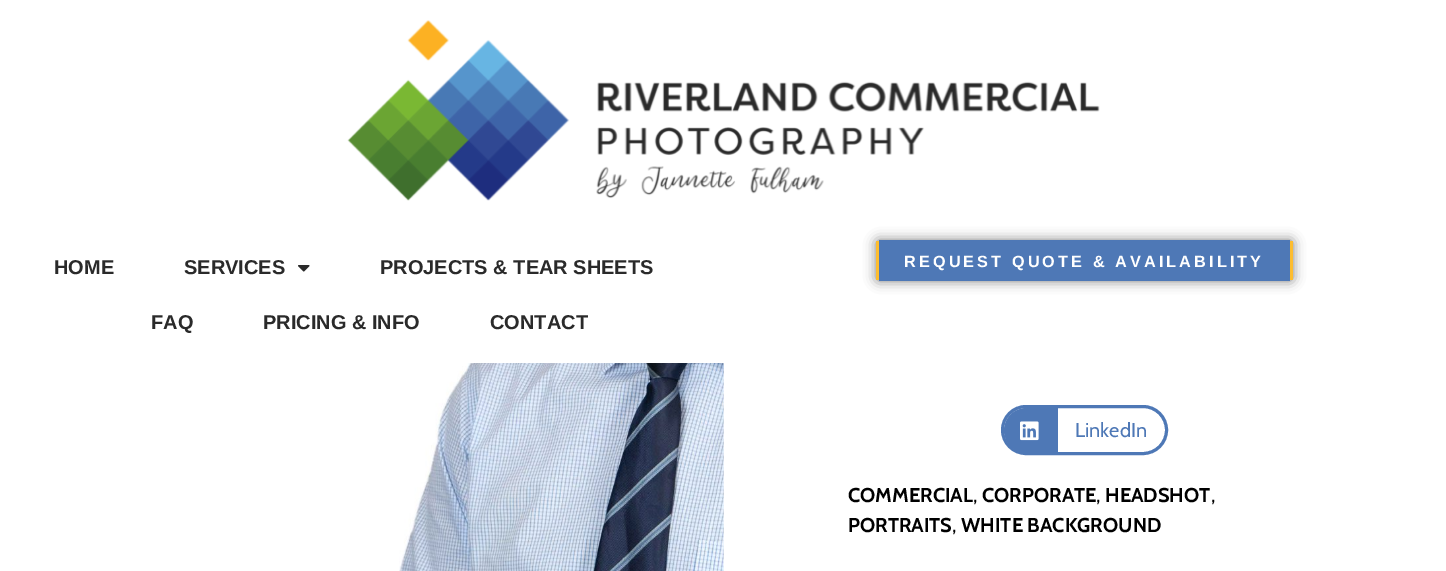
%!PS
<< /PageSize [1446 571] /PageUsesTransparency true >> setpagedevice
/mt/moveto load def
/li/lineto load def
/ct/curveto load def
/cp/closepath load def
/fl/fill load def
/st/stroke load def
/lw/setlinewidth load def
/co { dup -16 bitshift 255 div exch dup -8 bitshift 255 and 255 div exch 255 and 255 div setrgbcolor } def
/fn { [ exch dup neg 0 0 3 -1 roll 0 0 ] selectfont } def
/tx { co fn moveto show } def
/bx { co rectfill } def
/al { dup .setfillconstantalpha .setstrokeconstantalpha } def
/rr { 5 dict begin { /r /h /w /y /x } { exch def } forall
  x r add y moveto x w add y 2 copy h add r arct x w add y h add x 1 index r arct
  x y h add x y r arct x y 2 copy exch w add exch r arct closepath end } def
/sh { 12 dict begin { /a /b /q /h /w /y /x } { exch def } forall gsave /was 0 def
  9 -2 -9 { dup b mul 4 div /e exch def 1 sub .425 mul 2.718 exch exp 1 add a .99 .min exch div /now exch def
    1 1 now sub 1 was sub div sub al /was now def
    w h .min e 2 mul add 0 gt { x e sub y e sub w e 2 mul add h e 2 mul add
      q e add b .6 mul add w h .min 2 div e add .min 0 .max rr fill } if } for grestore end } def
/im { 5 dict begin { /h /w /y /x /name } { exch def } forall
  gsave x y translate w h scale
  w h 8 [w 0 0 h 0 0] name (r) file false 3 colorimage grestore end } def
0 .pushpdf14devicefilter
0 571 translate 1 -1 scale
4 setmiterlimit
0 0 1446 571 16#FFFFFF bx
(media/1.raw) 347 20 753 181 im
(media/2.raw) 298 265 12 7 im
16#000000 co
876 240 417 41 2.5 6 .5 sh
879 240 411 41 16#4E78B6 bx
1290 241 3 39 16#FDBD2F bx
876 241 3 39 16#FDBD2F bx
(media/3.raw) 399 363 325 208 im
16#4E78B6 co
3 lw
1002.5 406.5 164 47 23.5 rr st
1026.5 408 mt 1058 408 li 1058 453 li 1026.5 453 li 1014 453 1004 443 1004 430.5 ct 1004 418 1014 408 1026.5 408 ct cp fl
(media/4.raw) 1020 421 19 20 im
(HOME) 54 274 /LiberationSans-Bold 20 16#2A2A2A tx
(SERVICES) 184 274 /LiberationSans-Bold 20 16#2A2A2A tx
(PROJECTS & TEAR SHEETS) 380 274 /LiberationSans-Bold 20 16#2A2A2A tx
(FAQ) 151 329 /LiberationSans-Bold 20 16#2A2A2A tx
(PRICING & INFO) 263 329 /LiberationSans-Bold 20 16#2A2A2A tx
(CONTACT) 490 329 /LiberationSans-Bold 20 16#2A2A2A tx
/LiberationSans-Bold 16.25 fn
16#FFFFFF co
904 267 mt 3.1 0 (REQUEST QUOTE & AVAILABILITY) ashow
(LinkedIn) 1075 437 /Cabin-Regular 20 16#4E78B6 tx
(COMMERCIAL) 848 502 /Cabin-Bold 20 16#000000 tx
(,) 973 502 /Cabin-Regular 20 16#000000 tx
(CORPORATE) 982 502 /Cabin-Bold 20 16#000000 tx
(,) 1096 502 /Cabin-Regular 20 16#000000 tx
(HEADSHOT) 1105 502 /Cabin-Bold 20 16#000000 tx
(,) 1211 502 /Cabin-Regular 20 16#000000 tx
(PORTRAITS) 848 532 /Cabin-Bold 20 16#000000 tx
(,) 952 532 /Cabin-Regular 20 16#000000 tx
(WHITE BACKGROUND) 961 532 /Cabin-Bold 20 16#000000 tx
.poppdf14devicefilter showpage
